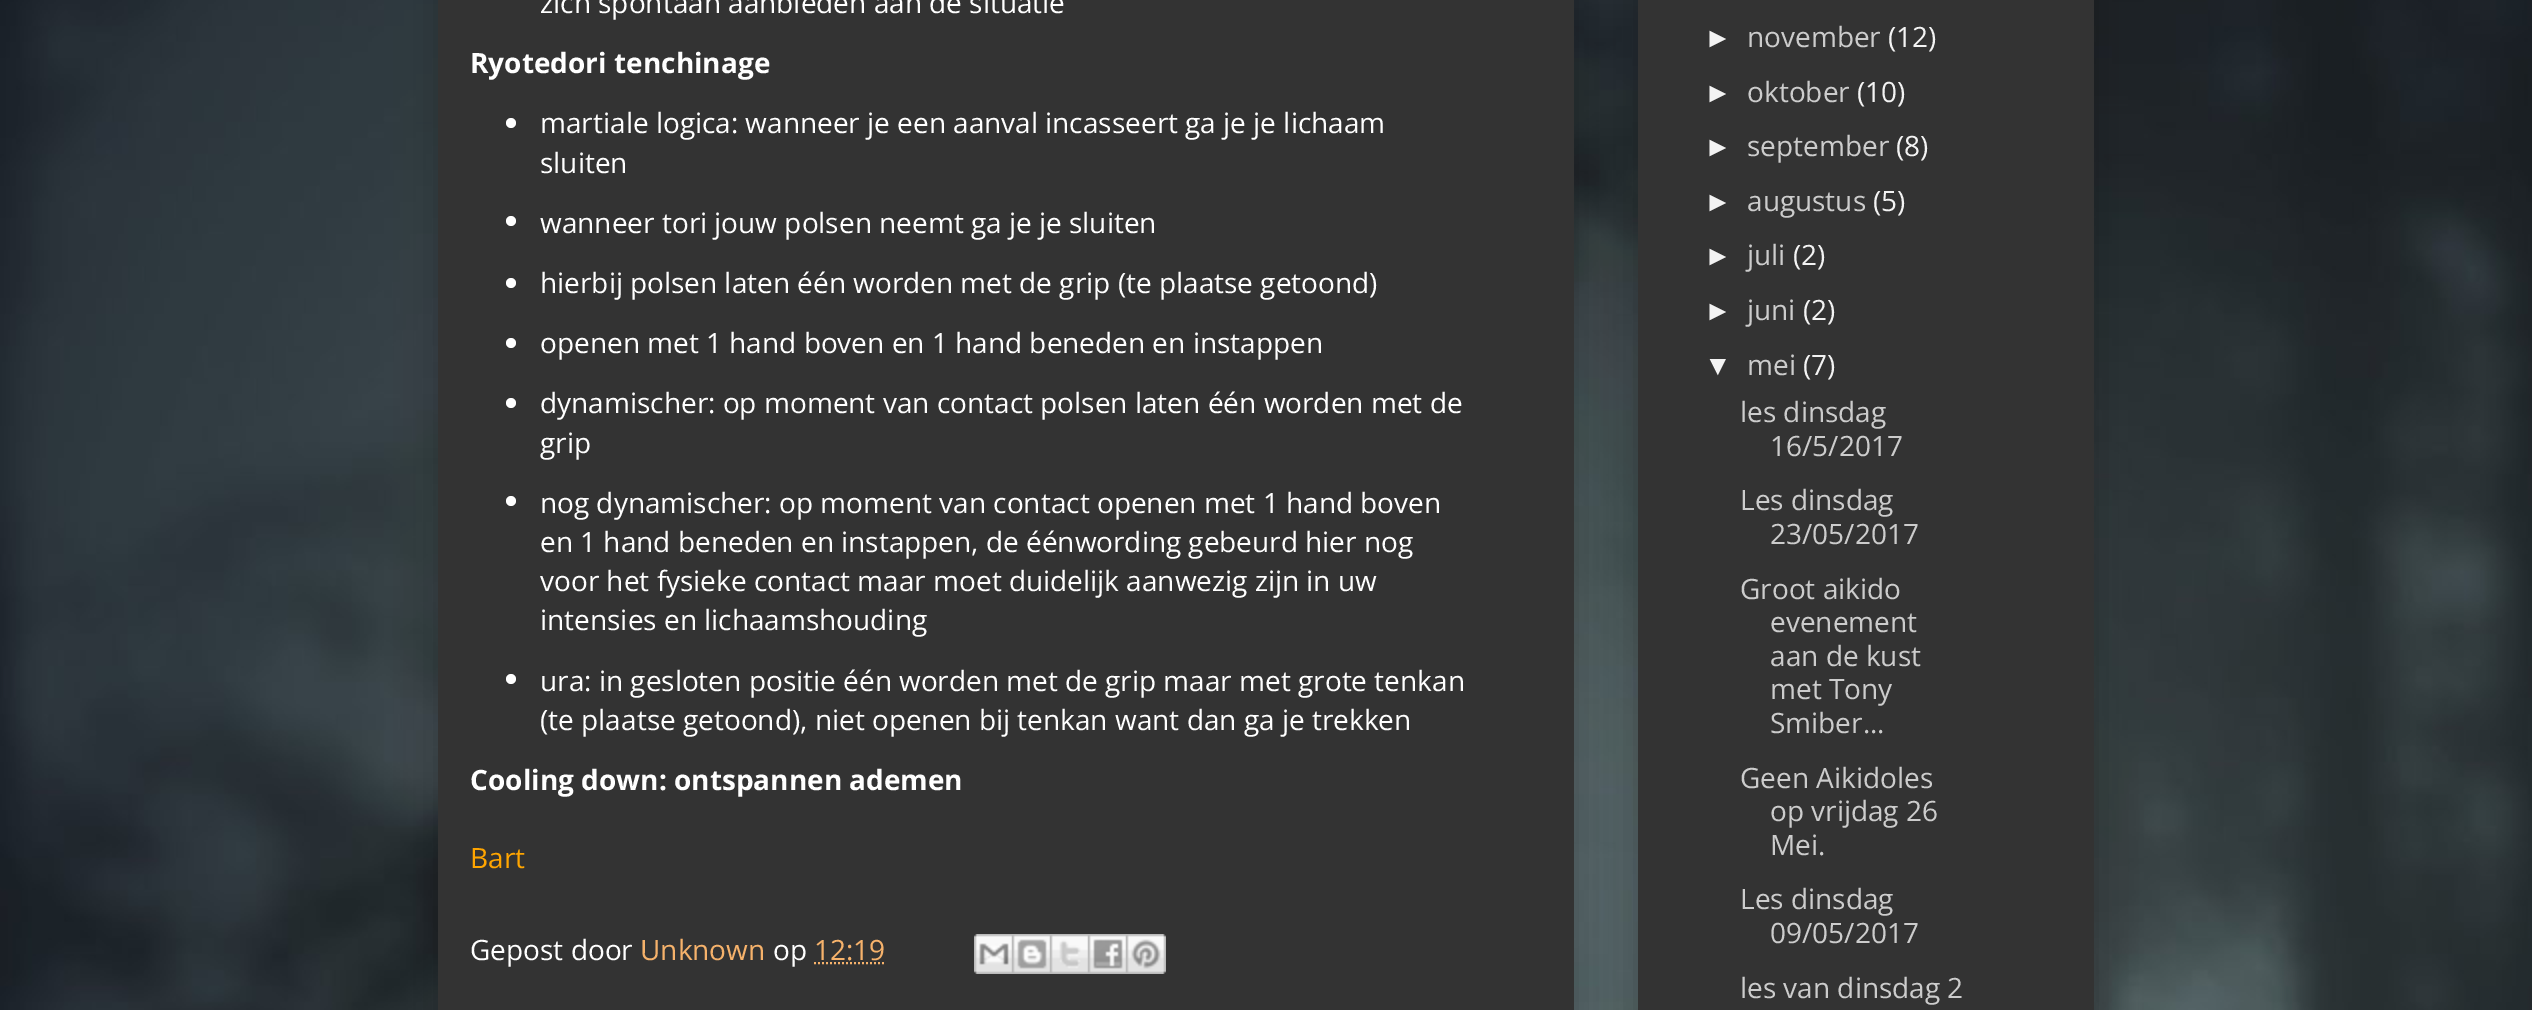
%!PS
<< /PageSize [2532 1010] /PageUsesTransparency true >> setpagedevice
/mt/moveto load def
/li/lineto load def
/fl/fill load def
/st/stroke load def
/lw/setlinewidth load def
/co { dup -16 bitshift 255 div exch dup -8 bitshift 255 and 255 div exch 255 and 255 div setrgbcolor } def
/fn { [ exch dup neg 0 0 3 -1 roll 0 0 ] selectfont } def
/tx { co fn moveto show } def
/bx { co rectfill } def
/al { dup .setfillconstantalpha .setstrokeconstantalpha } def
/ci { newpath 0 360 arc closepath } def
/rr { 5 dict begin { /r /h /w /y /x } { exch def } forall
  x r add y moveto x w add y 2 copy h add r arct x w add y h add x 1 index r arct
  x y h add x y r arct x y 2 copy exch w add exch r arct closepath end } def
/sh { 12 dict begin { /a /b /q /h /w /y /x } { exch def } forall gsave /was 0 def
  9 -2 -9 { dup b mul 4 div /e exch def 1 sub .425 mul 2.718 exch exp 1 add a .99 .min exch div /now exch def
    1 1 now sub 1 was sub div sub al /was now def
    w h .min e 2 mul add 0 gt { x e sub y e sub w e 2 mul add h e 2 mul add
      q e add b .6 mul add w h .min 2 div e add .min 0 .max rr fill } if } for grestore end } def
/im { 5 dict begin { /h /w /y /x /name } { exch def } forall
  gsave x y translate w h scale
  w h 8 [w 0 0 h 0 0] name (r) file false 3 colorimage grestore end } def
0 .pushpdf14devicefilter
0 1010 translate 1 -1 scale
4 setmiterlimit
0 0 2532 1010 16#FFFFFF bx
(media/1.raw) 0 0 2532 1010 im
16#000000 co
438 -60 1136 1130 0 20 .2 sh
438 0 1136 1010 16#333333 bx
16#FFFFFF co
511 123 5 ci fl
511 221 5 ci fl
511 283 5 ci fl
511 343 5 ci fl
511 403 5 ci fl
511 501 5 ci fl
511 679 5 ci fl
16#F6B26B co
2 lw
[2 2] 0 setdash
814 963 mt 885.5 963 li st
(media/2.raw) 974 934 38 40 im
(media/3.raw) 1012 934 38 40 im
(media/4.raw) 1050 934 38 40 im
(media/5.raw) 1088 934 38 40 im
(media/6.raw) 1126 934 40 40 im
16#000000 co
1638 -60 456 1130 0 20 .2 sh
1638 0 456 1010 16#333333 bx
(zich spontaan aanbieden aan de situatie) 540 13 /OpenSans-Regular 28 16#FFFFFF tx
(Ryotedori tenchinage) 470 73 /OpenSans-Bold 28 16#FFFFFF tx
(martiale logica: wanneer je een aanval incasseert ga je je lichaam) 540 133 /OpenSans-Regular 28 16#FFFFFF tx
(sluiten) 540 173 /OpenSans-Regular 28 16#FFFFFF tx
(wanneer tori jouw polsen neemt ga je je sluiten) 540 233 /OpenSans-Regular 28 16#FFFFFF tx
(hierbij polsen laten één worden met de grip \(te plaatse getoond\)) 540 293 /OpenSans-Regular 28 16#FFFFFF tx
(openen met 1 hand boven en 1 hand beneden en instappen) 540 353 /OpenSans-Regular 28 16#FFFFFF tx
(dynamischer: op moment van contact polsen laten één worden met de) 540 413 /OpenSans-Regular 28 16#FFFFFF tx
(grip) 540 453 /OpenSans-Regular 28 16#FFFFFF tx
(nog dynamischer: op moment van contact openen met 1 hand boven) 540 513 /OpenSans-Regular 28 16#FFFFFF tx
(en 1 hand beneden en instappen, de éénwording gebeurd hier nog) 540 552 /OpenSans-Regular 28 16#FFFFFF tx
(voor het fysieke contact maar moet duidelijk aanwezig zijn in uw) 540 591 /OpenSans-Regular 28 16#FFFFFF tx
(intensies en lichaamshouding) 540 630 /OpenSans-Regular 28 16#FFFFFF tx
(ura: in gesloten positie één worden met de grip maar met grote tenkan) 540 691 /OpenSans-Regular 28 16#FFFFFF tx
(\(te plaatse getoond\), niet openen bij tenkan want dan ga je trekken) 540 730 /OpenSans-Regular 28 16#FFFFFF tx
(Cooling down: ontspannen ademen) 470 790 /OpenSans-Bold 28 16#FFFFFF tx
(Bart) 470 868 /OpenSans-Regular 28 16#FFA500 tx
(Gepost door) 470 960 /OpenSans-Regular 28 16#FFFFFF tx
(Unknown) 640 960 /OpenSans-Regular 28 16#F6B26B tx
(op) 773 960 /OpenSans-Regular 28 16#FFFFFF tx
(12:19) 814 960 /OpenSans-Regular 28 16#F6B26B tx
(►) 1704 47 /LiberationSans-Regular 28 16#F3F3F3 tx
(november) 1747 47 /OpenSans-Regular 28 16#CCCCCC tx
(\(12\)) 1888 47 /OpenSans-Regular 28 16#F3F3F3 tx
(►) 1704 102 /LiberationSans-Regular 28 16#F3F3F3 tx
(oktober) 1747 102 /OpenSans-Regular 28 16#CCCCCC tx
(\(10\)) 1857 102 /OpenSans-Regular 28 16#F3F3F3 tx
(►) 1704 156 /LiberationSans-Regular 28 16#F3F3F3 tx
(september) 1747 156 /OpenSans-Regular 28 16#CCCCCC tx
(\(8\)) 1896 156 /OpenSans-Regular 28 16#F3F3F3 tx
(►) 1704 211 /LiberationSans-Regular 28 16#F3F3F3 tx
(augustus) 1747 211 /OpenSans-Regular 28 16#CCCCCC tx
(\(5\)) 1873 211 /OpenSans-Regular 28 16#F3F3F3 tx
(►) 1704 265 /LiberationSans-Regular 28 16#F3F3F3 tx
(juli) 1747 265 /OpenSans-Regular 28 16#CCCCCC tx
(\(2\)) 1793 265 /OpenSans-Regular 28 16#F3F3F3 tx
(►) 1704 320 /LiberationSans-Regular 28 16#F3F3F3 tx
(juni) 1747 320 /OpenSans-Regular 28 16#CCCCCC tx
(\(2\)) 1803 320 /OpenSans-Regular 28 16#F3F3F3 tx
(▼) 1704 375 /LiberationSans-Regular 28 16#F3F3F3 tx
(mei) 1747 375 /OpenSans-Regular 28 16#CCCCCC tx
(\(7\)) 1803 375 /OpenSans-Regular 28 16#F3F3F3 tx
(les dinsdag) 1740 422 /OpenSans-Regular 28 16#CCCCCC tx
(16/5/2017) 1770 456 /OpenSans-Regular 28 16#CCCCCC tx
(Les dinsdag) 1740 510 /OpenSans-Regular 28 16#CCCCCC tx
(23/05/2017) 1770 544 /OpenSans-Regular 28 16#CCCCCC tx
(Groot aikido) 1740 599 /OpenSans-Regular 28 16#CCCCCC tx
(evenement) 1770 632 /OpenSans-Regular 28 16#CCCCCC tx
(aan de kust) 1770 666 /OpenSans-Regular 28 16#CCCCCC tx
(met Tony) 1770 699 /OpenSans-Regular 28 16#CCCCCC tx
(Smiber...) 1770 733 /OpenSans-Regular 28 16#CCCCCC tx
(Geen Aikidoles) 1740 788 /OpenSans-Regular 28 16#CCCCCC tx
(op vrijdag 26) 1770 821 /OpenSans-Regular 28 16#CCCCCC tx
(Mei.) 1770 855 /OpenSans-Regular 28 16#CCCCCC tx
(Les dinsdag) 1740 909 /OpenSans-Regular 28 16#CCCCCC tx
(09/05/2017) 1770 943 /OpenSans-Regular 28 16#CCCCCC tx
(les van dinsdag 2) 1740 998 /OpenSans-Regular 28 16#CCCCCC tx
.poppdf14devicefilter showpage
